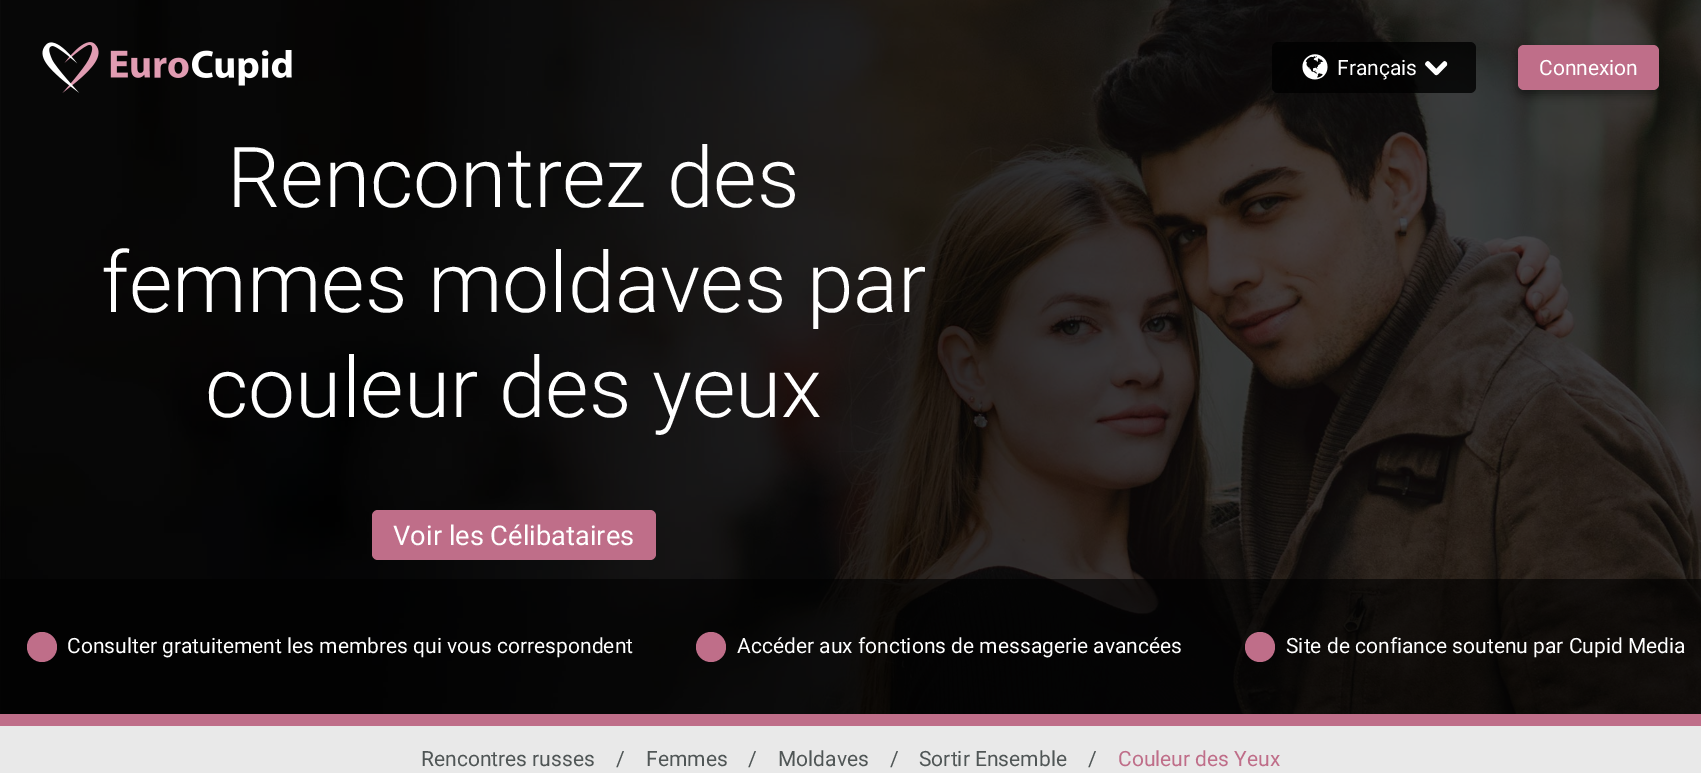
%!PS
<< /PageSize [1701 773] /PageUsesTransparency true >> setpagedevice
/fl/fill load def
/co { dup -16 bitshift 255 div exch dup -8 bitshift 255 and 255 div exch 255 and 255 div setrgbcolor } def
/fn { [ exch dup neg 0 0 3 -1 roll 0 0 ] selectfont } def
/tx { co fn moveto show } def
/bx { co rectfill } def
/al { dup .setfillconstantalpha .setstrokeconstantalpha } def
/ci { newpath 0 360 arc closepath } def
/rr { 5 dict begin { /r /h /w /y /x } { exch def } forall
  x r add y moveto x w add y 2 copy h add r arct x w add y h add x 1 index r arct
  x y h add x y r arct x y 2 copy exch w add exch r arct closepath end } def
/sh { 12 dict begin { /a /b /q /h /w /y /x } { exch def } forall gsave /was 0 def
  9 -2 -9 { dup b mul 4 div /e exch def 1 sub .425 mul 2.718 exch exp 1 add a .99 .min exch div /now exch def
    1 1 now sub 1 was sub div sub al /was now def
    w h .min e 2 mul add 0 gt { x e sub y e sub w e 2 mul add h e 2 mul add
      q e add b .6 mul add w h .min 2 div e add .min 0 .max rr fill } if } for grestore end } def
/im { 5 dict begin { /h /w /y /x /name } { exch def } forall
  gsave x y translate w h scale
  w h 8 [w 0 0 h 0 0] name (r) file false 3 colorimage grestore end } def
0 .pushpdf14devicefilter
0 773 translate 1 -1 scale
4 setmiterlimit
0 0 1701 773 16#BF6E89 bx
(media/5.raw) 0 0 1701 714 im
(media/1.raw) 42 42 57 51 im
(media/2.raw) 110 50 182 36 im
0.8 al
16#000000 co
1272 42 204 51 6 rr fl
1 al
(media/3.raw) 1302 54 26 26 im
(media/4.raw) 1425 61 23 15 im
1518 50 141 45 6 4.5 .4 sh
16#BF6E89 co
1518 45 141 45 6 rr fl
372 510 284 50 6 rr fl
0.6 al
0 579 1701 135 16#000000 bx
1 al
16#BF6E89 co
42 647 15 ci fl
711 647 15 ci fl
1260 647 15 ci fl
0 726 1701 47 16#E9E9E9 bx
(Français) 1337 75 /Roboto-Regular 21 16#FFFFFF tx
(Connexion) 1539 75 /Roboto-Regular 21 16#FFFFFF tx
(Rencontrez des) 227 207 /Roboto-Light 84 16#FFFFFF tx
(femmes moldaves par) 101 312 /Roboto-Light 84 16#FFFFFF tx
(couleur des yeux) 205 417 /Roboto-Light 84 16#FFFFFF tx
(Voir les Célibataires) 393 545 /Roboto-Regular 27.25 16#FFFFFF tx
(Consulter gratuitement les membres qui vous correspondent) 67 653 /Roboto-Regular 21 16#FFFFFF tx
(Accéder aux fonctions de messagerie avancées) 737 653 /Roboto-Regular 21 16#FFFFFF tx
(Site de confiance soutenu par Cupid Media) 1286 653 /Roboto-Regular 21 16#FFFFFF tx
(Rencontres russes) 421 766 /Roboto-Regular 21 16#505656 tx
(/) 616 766 /Roboto-Regular 21 16#505656 tx
(Femmes) 646 766 /Roboto-Regular 21 16#505656 tx
(/) 748 766 /Roboto-Regular 21 16#505656 tx
(Moldaves) 778 766 /Roboto-Regular 21 16#505656 tx
(/) 890 766 /Roboto-Regular 21 16#505656 tx
(Sortir Ensemble) 919 766 /Roboto-Regular 21 16#505656 tx
(/) 1088 766 /Roboto-Regular 21 16#505656 tx
(Couleur des Yeux) 1118 766 /Roboto-Regular 21 16#BF6E89 tx
.poppdf14devicefilter showpage
